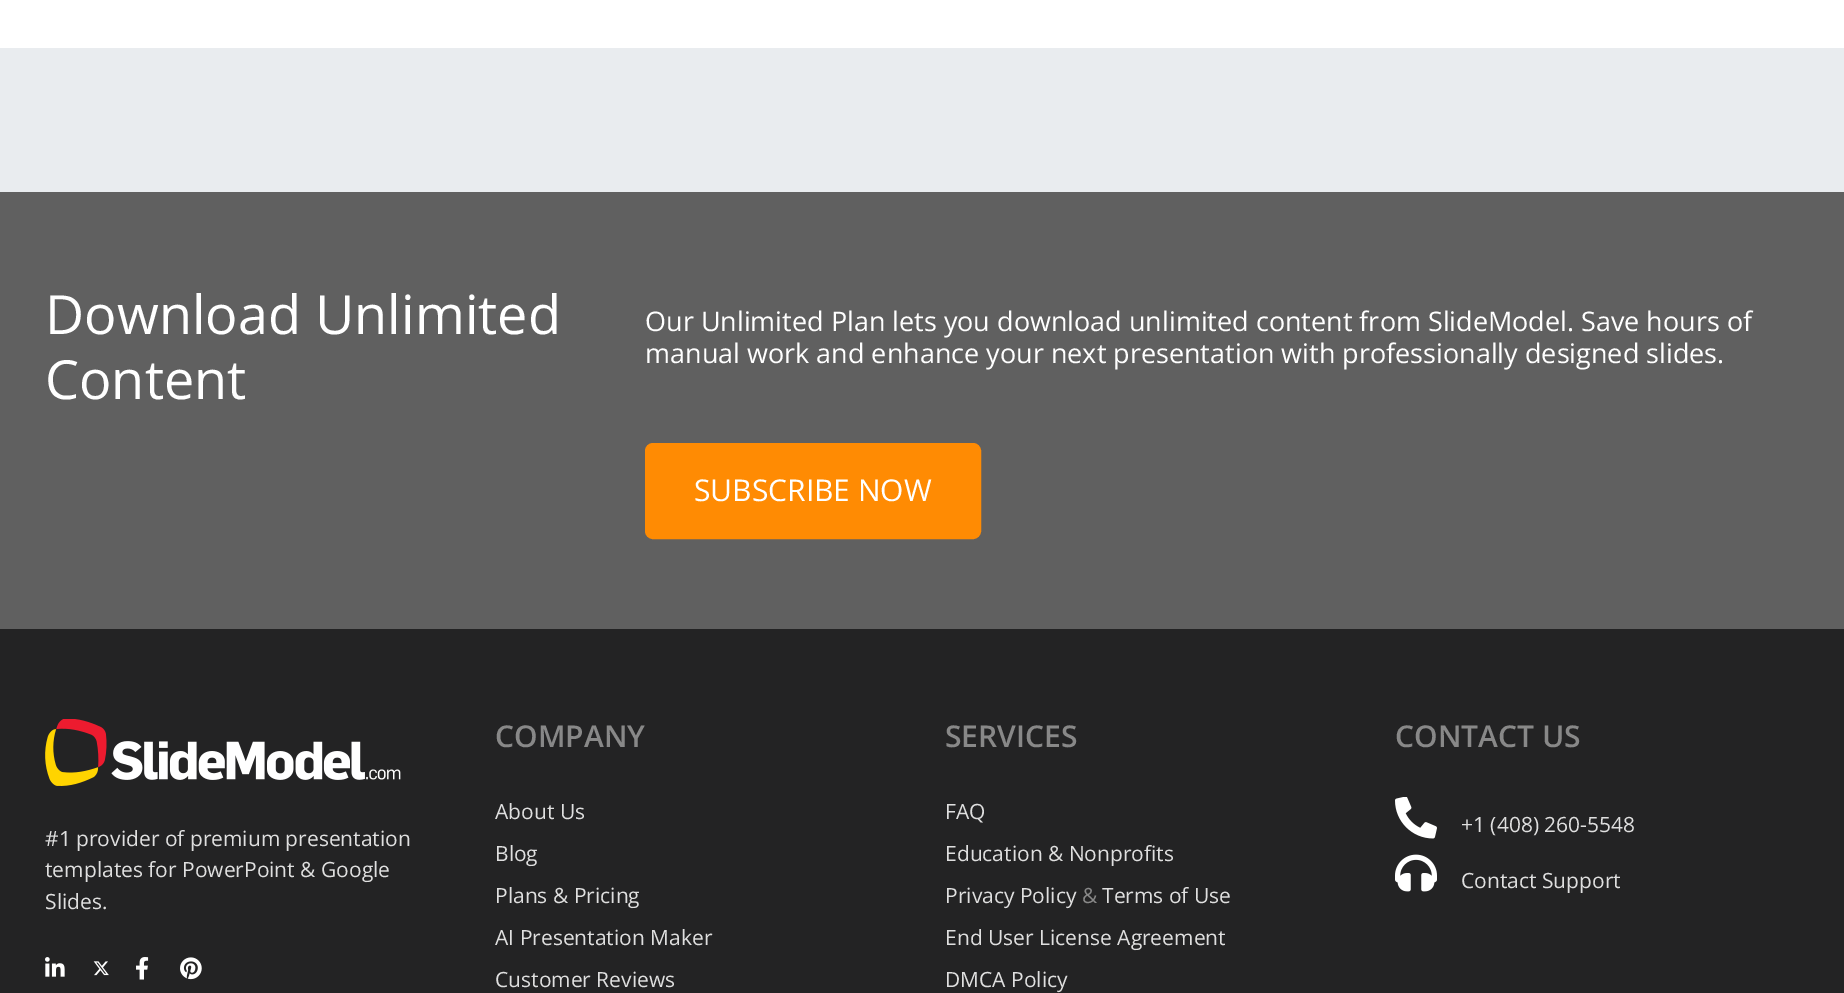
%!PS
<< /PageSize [1844 993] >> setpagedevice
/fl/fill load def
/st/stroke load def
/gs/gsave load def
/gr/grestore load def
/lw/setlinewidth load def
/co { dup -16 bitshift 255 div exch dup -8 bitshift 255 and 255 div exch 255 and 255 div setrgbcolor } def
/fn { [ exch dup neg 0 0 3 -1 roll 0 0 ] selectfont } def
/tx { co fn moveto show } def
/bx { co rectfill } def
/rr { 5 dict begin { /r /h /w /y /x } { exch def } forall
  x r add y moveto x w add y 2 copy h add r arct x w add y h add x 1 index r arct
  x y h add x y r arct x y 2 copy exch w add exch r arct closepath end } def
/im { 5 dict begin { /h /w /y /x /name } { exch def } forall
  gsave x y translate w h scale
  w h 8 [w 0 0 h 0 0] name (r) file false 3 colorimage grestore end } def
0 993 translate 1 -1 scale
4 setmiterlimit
0 0 1844 993 16#FFFFFF bx
0 48 1844 144 16#E9ECEF bx
0 192 1844 437 16#606060 bx
16#FF8B03 co
646 444 334 94 7 rr gs fl gr
2 lw
st
0 629 1844 364 16#232324 bx
(media/1.raw) 45 719 356 67 im
(media/2.raw) 45 957 20 20 im
(media/3.raw) 93 961 16 15 im
(media/4.raw) 136 957 13 23 im
(media/5.raw) 180 957 22 23 im
(media/6.raw) 1395 797 42 42 im
(media/7.raw) 1395 854 42 38 im
(Download Unlimited) 45 334 /OpenSans-Regular 54 16#FFFFFF tx
(Content) 45 399 /OpenSans-Regular 54 16#FFFFFF tx
(Our Unlimited Plan lets you download unlimited content from SlideModel. Save hours of) 645 331 /OpenSans-Regular 27 16#FFFFFF tx
(manual work and enhance your next presentation with professionally designed slides.) 645 363 /OpenSans-Regular 27 16#FFFFFF tx
(SUBSCRIBE NOW) 694 501 /OpenSans-Regular 30 16#FFFFFF tx
(#1 provider of premium presentation) 45 846 /OpenSans-Regular 21 16#DFDFDF tx
(templates for PowerPoint & Google) 45 877 /OpenSans-Regular 21 16#DFDFDF tx
(Slides.) 45 909 /OpenSans-Regular 21 16#DFDFDF tx
(COMPANY) 495 747 /OpenSans-SemiBold 30 16#888888 tx
(About Us) 495 819 /OpenSans-Regular 21 16#DFDFDF tx
(Blog) 495 861 /OpenSans-Regular 21 16#DFDFDF tx
(Plans & Pricing) 495 903 /OpenSans-Regular 21 16#DFDFDF tx
(AI Presentation Maker) 495 945 /OpenSans-Regular 21 16#DFDFDF tx
(Customer Reviews) 495 987 /OpenSans-Regular 21 16#DFDFDF tx
(SERVICES) 945 747 /OpenSans-SemiBold 30 16#888888 tx
(FAQ) 945 819 /OpenSans-Regular 21 16#DFDFDF tx
(Education & Nonprofits) 945 861 /OpenSans-Regular 21 16#DFDFDF tx
(Privacy Policy) 945 903 /OpenSans-Regular 21 16#DFDFDF tx
(&) 1082 903 /OpenSans-Regular 21 16#888888 tx
(Terms of Use) 1102 903 /OpenSans-Regular 21 16#DFDFDF tx
(End User License Agreement) 945 945 /OpenSans-Regular 21 16#DFDFDF tx
(DMCA Policy) 945 987 /OpenSans-Regular 21 16#DFDFDF tx
(CONTACT US) 1395 747 /OpenSans-SemiBold 30 16#888888 tx
(+1 \(408\) 260-5548) 1461 832 /OpenSans-Regular 21 16#DFDFDF tx
(Contact Support) 1461 888 /OpenSans-Regular 21 16#DFDFDF tx
showpage
